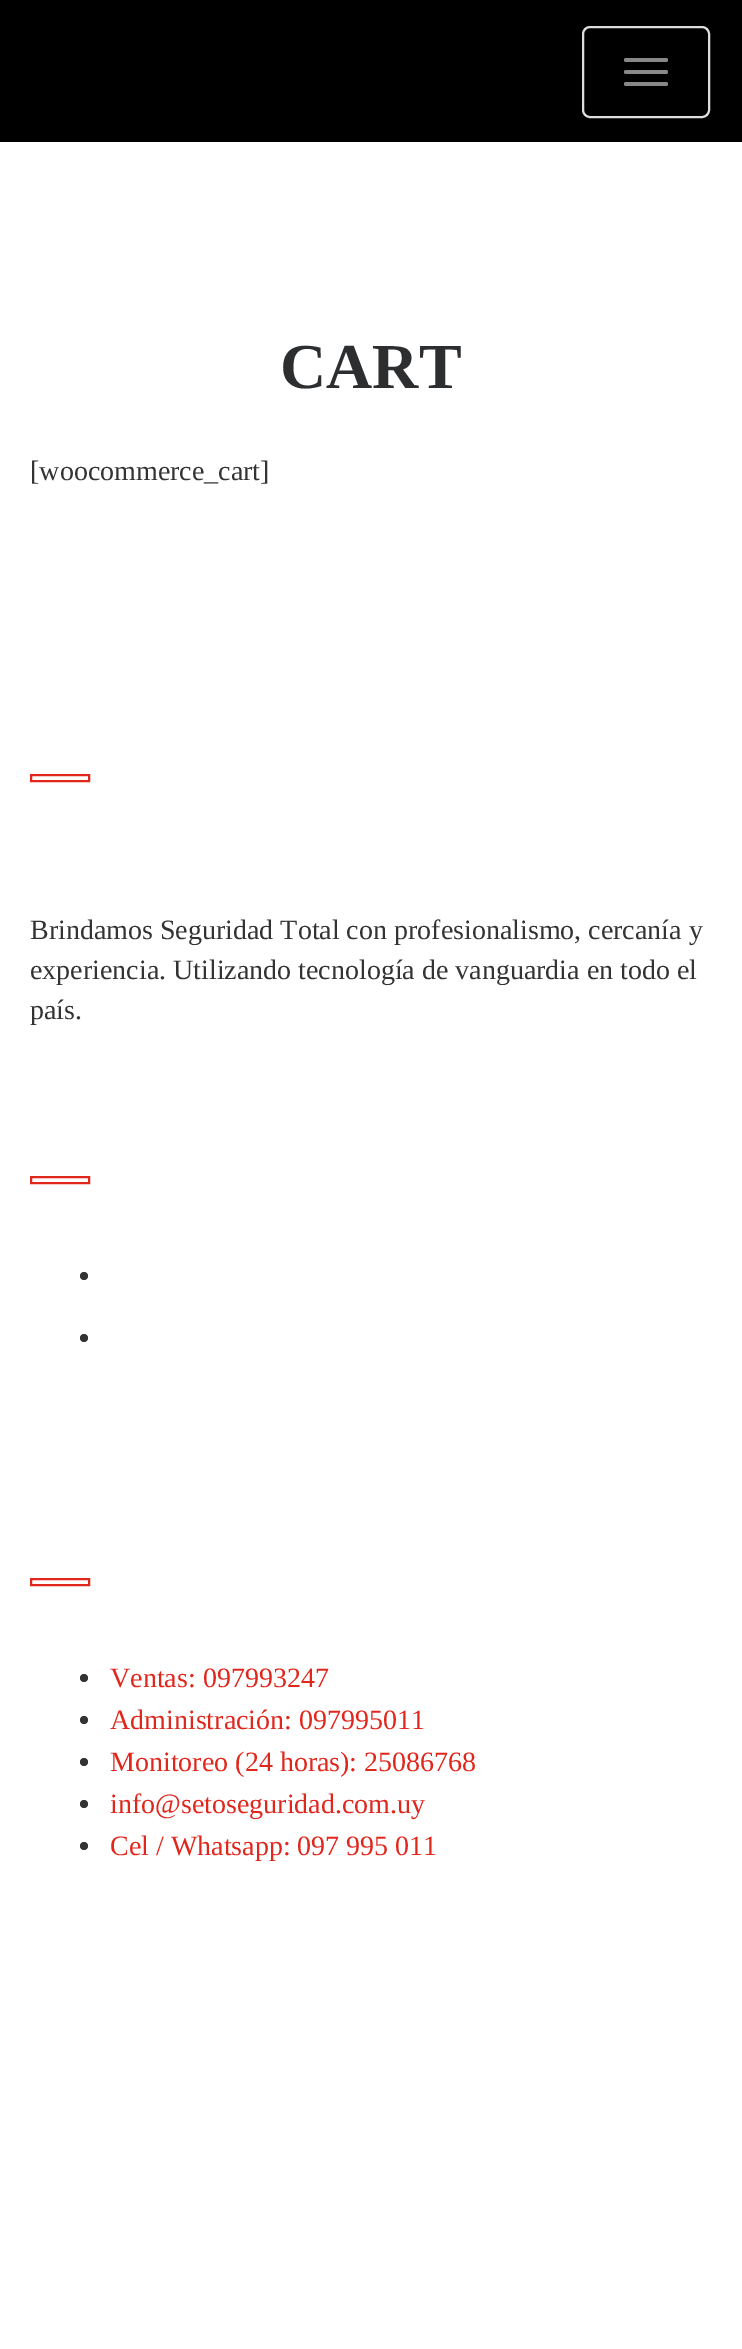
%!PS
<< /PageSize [742 2349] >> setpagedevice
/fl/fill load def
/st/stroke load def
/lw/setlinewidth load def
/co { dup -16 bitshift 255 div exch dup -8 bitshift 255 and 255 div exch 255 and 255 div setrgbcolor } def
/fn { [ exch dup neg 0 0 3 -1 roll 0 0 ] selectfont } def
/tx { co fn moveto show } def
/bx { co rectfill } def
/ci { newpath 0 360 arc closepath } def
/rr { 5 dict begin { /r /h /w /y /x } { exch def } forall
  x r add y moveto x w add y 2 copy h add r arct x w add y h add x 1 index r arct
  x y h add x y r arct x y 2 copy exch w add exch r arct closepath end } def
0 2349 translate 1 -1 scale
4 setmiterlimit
0 0 742 2349 16#FFFFFF bx
0 0 742 142 16#000000 bx
16#DDDDDD co
2 lw
583 27 126 90 7 rr st
16#888888 co
624 58 44 4 2 rr fl
624 70 44 4 2 rr fl
624 82 44 4 2 rr fl
16#E1261C co
31 775 58 6 rectstroke
31 1177 58 6 rectstroke
16#333333 co
84 1276 4 ci fl
84 1338 4 ci fl
16#E1261C co
31 1579 58 6 rectstroke
16#333333 co
84 1678 4 ci fl
84 1720 4 ci fl
84 1762 4 ci fl
84 1804 4 ci fl
84 1846 4 ci fl
(CART) 280 388 /LiberationSerif-Bold 64 16#2C2E30 tx
([woocommerce_cart]) 30 480 /LiberationSerif-Regular 28 16#333333 tx
(Brindamos Seguridad Total con profesionalismo, cercanía y) 30 939 /LiberationSerif-Regular 28 16#333333 tx
(experiencia. Utilizando tecnología de vanguardia en todo el) 30 979 /LiberationSerif-Regular 28 16#333333 tx
(país.) 30 1019 /LiberationSerif-Regular 28 16#333333 tx
(Ventas: 097993247) 110 1687 /LiberationSerif-Regular 28 16#E1261C tx
(Administración: 097995011) 110 1729 /LiberationSerif-Regular 28 16#E1261C tx
(Monitoreo \(24 horas\): 25086768) 110 1771 /LiberationSerif-Regular 28 16#E1261C tx
(info@setoseguridad.com.uy) 110 1813 /LiberationSerif-Regular 28 16#E1261C tx
(Cel / Whatsapp: 097 995 011) 110 1855 /LiberationSerif-Regular 28 16#E1261C tx
showpage
